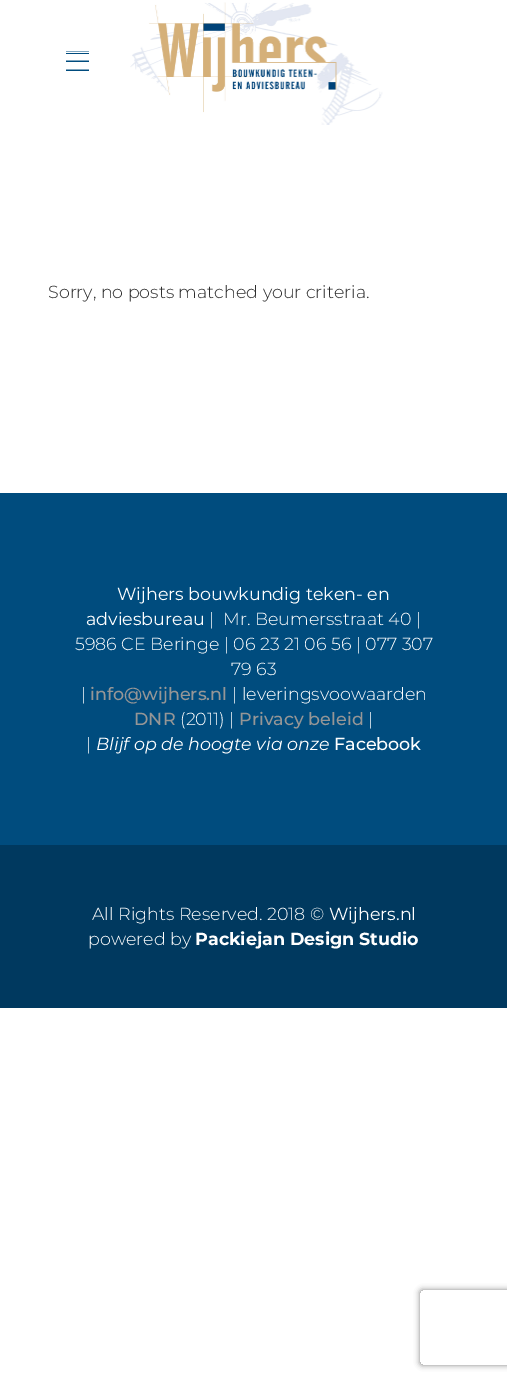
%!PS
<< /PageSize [507 1382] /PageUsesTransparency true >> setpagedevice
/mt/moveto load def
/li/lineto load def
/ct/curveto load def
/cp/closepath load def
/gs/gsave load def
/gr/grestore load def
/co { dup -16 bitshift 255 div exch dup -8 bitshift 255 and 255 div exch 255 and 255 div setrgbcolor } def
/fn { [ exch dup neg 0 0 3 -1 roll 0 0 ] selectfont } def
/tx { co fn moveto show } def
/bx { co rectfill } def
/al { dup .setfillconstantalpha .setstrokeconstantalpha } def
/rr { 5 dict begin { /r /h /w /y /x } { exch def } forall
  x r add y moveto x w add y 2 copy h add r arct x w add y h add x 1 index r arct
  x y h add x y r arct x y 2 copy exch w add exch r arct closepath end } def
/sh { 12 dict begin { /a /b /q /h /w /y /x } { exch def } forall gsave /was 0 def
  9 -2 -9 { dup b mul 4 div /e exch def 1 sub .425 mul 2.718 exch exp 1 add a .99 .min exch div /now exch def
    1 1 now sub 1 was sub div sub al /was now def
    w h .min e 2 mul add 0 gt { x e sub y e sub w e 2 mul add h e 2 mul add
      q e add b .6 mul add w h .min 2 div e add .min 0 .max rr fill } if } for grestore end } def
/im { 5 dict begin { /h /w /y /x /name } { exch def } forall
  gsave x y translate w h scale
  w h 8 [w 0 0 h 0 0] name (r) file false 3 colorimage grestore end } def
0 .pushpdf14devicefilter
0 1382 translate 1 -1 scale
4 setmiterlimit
0 0 507 1382 16#FFFFFF bx
66 53 23 1 16#004C7E bx
66 51 23 1 16#80A6BF bx
66 61 23 1 16#004C7E bx
66 60 23 1 16#80A6BF bx
66 70 23 1 16#004C7E bx
66 69 23 1 16#80A6BF bx
(media/1.raw) 130 2 253 123 im
0 493 507 352 16#004C7E bx
0 845 507 163 16#00395F bx
gs
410 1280 mt 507 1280 li 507 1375 li 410 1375 li cp 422.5 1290 mt 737.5 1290 li 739 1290 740 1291 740 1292.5 ct 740 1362.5 li 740 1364 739 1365 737.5 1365 ct 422.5 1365 li 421 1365 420 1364 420 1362.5 ct 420 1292.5 li 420 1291 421 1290 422.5 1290 ct cp eoclip newpath
16#808080 co
420 1290 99 75 2.5 3 1 sh
gr
(Sorry, no posts matched your criteria.) 48 298 /Montserrat-Light 17.5 16#2D2D2D tx
(Wijhers bouwkundig teken- en) 117 600 /Montserrat-Regular 17.5 16#FFFFFF tx
(adviesbureau) 86 625 /Montserrat-Regular 17.5 16#FFFFFF tx
(|) 209 625 /Montserrat-Light 17.5 16#FFFFFF tx
(Mr. Beumersstraat 40 |) 223 625 /Montserrat-Light 17.5 16#FFFFFF tx
(5986 CE Beringe | 06 23 21 06 56 | 077 307) 75 650 /Montserrat-Light 17.5 16#FFFFFF tx
(79 63) 231 675 /Montserrat-Light 17.5 16#FFFFFF tx
(|) 81 700 /Montserrat-Light 17.5 16#FFFFFF tx
(info@wijhers.nl) 90 700 /Montserrat-Medium 17.5 16#969696 tx
(| leveringsvoowaarden) 232 700 /Montserrat-Light 17.5 16#FFFFFF tx
(DNR) 134 725 /Montserrat-Medium 17.5 16#969696 tx
(\(2011\) |) 180 725 /Montserrat-Light 17.5 16#FFFFFF tx
(Privacy beleid) 239 725 /Montserrat-Medium 17.5 16#969696 tx
(|) 368 725 /Montserrat-Light 17.5 16#FFFFFF tx
(|) 86 750 /Montserrat-Light 17.5 16#FFFFFF tx
(Blijf op de hoogte via onze) 96 750 /Montserrat-Italic 17.5 16#FFFFFF tx
(Facebook) 334 750 /Montserrat-Medium 17.5 16#FFFFFF tx
(All Rights Reserved. 2018 ©) 92 920 /Montserrat-Light 17.5 16#FFFFFF tx
(Wijhers.nl) 329 920 /Montserrat-Regular 17.5 16#FFFFFF tx
(powered by) 88 945 /Montserrat-Light 17.5 16#FFFFFF tx
(Packiejan Design Studio) 195 945 /Montserrat-Bold 17.5 16#FFFFFF tx
.poppdf14devicefilter showpage
